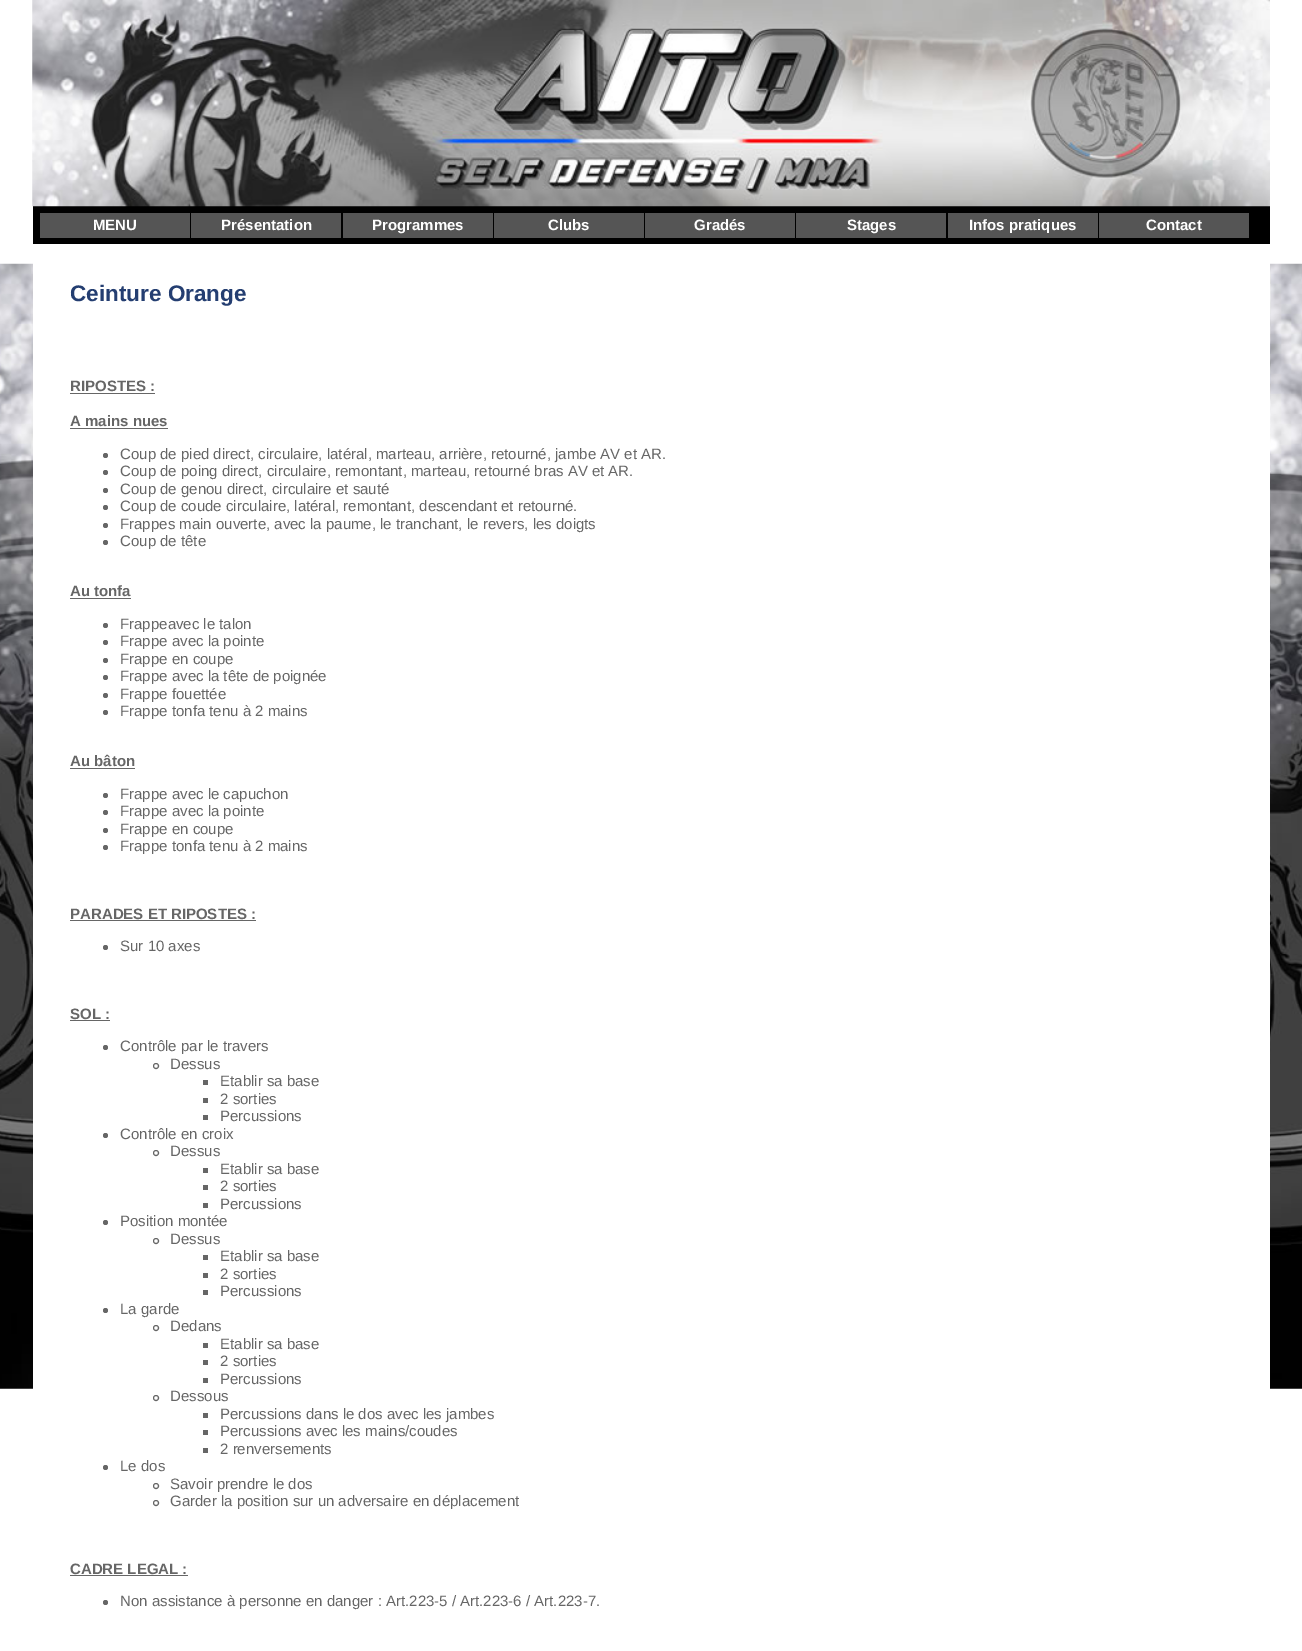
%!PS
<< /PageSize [1302 1651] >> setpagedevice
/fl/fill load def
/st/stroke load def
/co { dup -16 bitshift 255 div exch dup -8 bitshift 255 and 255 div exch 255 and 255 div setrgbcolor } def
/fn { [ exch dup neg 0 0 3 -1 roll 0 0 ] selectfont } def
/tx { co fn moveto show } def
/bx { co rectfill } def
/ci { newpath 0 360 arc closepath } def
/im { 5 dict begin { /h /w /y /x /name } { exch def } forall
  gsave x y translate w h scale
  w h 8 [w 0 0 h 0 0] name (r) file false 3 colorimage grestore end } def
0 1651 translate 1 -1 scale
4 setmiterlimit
0 0 1302 1651 16#FFFFFF bx
(media/1.raw) 0 263 1302 1126 im
33 263 1237 1126 16#FFFFFF bx
(media/2.raw) 32 0 1 207 im
33 206 1237 38 16#000000 bx
(media/3.raw) 32 0 1238 207 im
40 213 150 25 16#555555 bx
191 213 150 25 16#555555 bx
343 213 150 25 16#555555 bx
494 213 150 25 16#555555 bx
645 213 150 25 16#555555 bx
796 213 150 25 16#555555 bx
948 213 150 25 16#555555 bx
1099 213 150 25 16#555555 bx
70 393 85 1 16#666666 bx
70 428 98 1 16#666666 bx
105.5 455.5 2.5 ci fl
105.5 472.5 2.5 ci fl
105.5 490.5 2.5 ci fl
105.5 507.5 2.5 ci fl
105.5 525.5 2.5 ci fl
105.5 542.5 2.5 ci fl
70 598 61 1 16#666666 bx
105.5 625.5 2.5 ci fl
105.5 642.5 2.5 ci fl
105.5 660.5 2.5 ci fl
105.5 677.5 2.5 ci fl
105.5 695.5 2.5 ci fl
105.5 712.5 2.5 ci fl
70 768 65 1 16#666666 bx
105.5 795.5 2.5 ci fl
105.5 812.5 2.5 ci fl
105.5 830.5 2.5 ci fl
105.5 847.5 2.5 ci fl
70 920 186 1 16#666666 bx
105.5 947.5 2.5 ci fl
70 1020 40 1 16#666666 bx
105.5 1047.5 2.5 ci fl
156 1066 2.5 ci st
203 1080 5 5 16#666666 bx
203 1098 5 5 16#666666 bx
203 1115 5 5 16#666666 bx
105.5 1135.5 2.5 ci fl
156 1153 2.5 ci st
203 1168 5 5 16#666666 bx
203 1185 5 5 16#666666 bx
203 1203 5 5 16#666666 bx
105.5 1222.5 2.5 ci fl
156 1241 2.5 ci st
203 1255 5 5 16#666666 bx
203 1273 5 5 16#666666 bx
203 1290 5 5 16#666666 bx
105.5 1310.5 2.5 ci fl
156 1328 2.5 ci st
203 1343 5 5 16#666666 bx
203 1360 5 5 16#666666 bx
203 1378 5 5 16#666666 bx
156 1398 2.5 ci st
203 1413 5 5 16#666666 bx
203 1430 5 5 16#666666 bx
203 1448 5 5 16#666666 bx
105.5 1467.5 2.5 ci fl
156 1486 2.5 ci st
156 1503 2.5 ci st
70 1575 118 1 16#666666 bx
105.5 1602.5 2.5 ci fl
(MENU) 93 230 /LiberationSans-Bold 15 16#FFFFFF tx
(Présentation) 221 230 /LiberationSans-Bold 15 16#FFFFFF tx
(Programmes) 372 230 /LiberationSans-Bold 15 16#FFFFFF tx
(Clubs) 548 230 /LiberationSans-Bold 15 16#FFFFFF tx
(Gradés) 694 230 /LiberationSans-Bold 15 16#FFFFFF tx
(Stages) 847 230 /LiberationSans-Bold 15 16#FFFFFF tx
(Infos pratiques) 969 230 /LiberationSans-Bold 15 16#FFFFFF tx
(Contact) 1146 230 /LiberationSans-Bold 15 16#FFFFFF tx
(Ceinture Orange) 70 301 /LiberationSans-Bold 22.5 16#243E71 tx
(RIPOSTES :) 70 391 /LiberationSans-Bold 15 16#666666 tx
(A mains nues) 70 426 /LiberationSans-Bold 15 16#666666 tx
(Coup de pied direct, circulaire, latéral, marteau, arrière, retourné, jambe AV et AR.) 120 459 /LiberationSans-Regular 15 16#666666 tx
(Coup de poing direct, circulaire, remontant, marteau, retourné bras AV et AR.) 120 476 /LiberationSans-Regular 15 16#666666 tx
(Coup de genou direct, circulaire et sauté) 120 494 /LiberationSans-Regular 15 16#666666 tx
(Coup de coude circulaire, latéral, remontant, descendant et retourné.) 120 511 /LiberationSans-Regular 15 16#666666 tx
(Frappes main ouverte, avec la paume, le tranchant, le revers, les doigts) 120 529 /LiberationSans-Regular 15 16#666666 tx
(Coup de tête) 120 546 /LiberationSans-Regular 15 16#666666 tx
(Au tonfa) 70 596 /LiberationSans-Bold 15 16#666666 tx
(Frappeavec le talon) 120 629 /LiberationSans-Regular 15 16#666666 tx
(Frappe avec la pointe) 120 646 /LiberationSans-Regular 15 16#666666 tx
(Frappe en coupe) 120 664 /LiberationSans-Regular 15 16#666666 tx
(Frappe avec la tête de poignée) 120 681 /LiberationSans-Regular 15 16#666666 tx
(Frappe fouettée) 120 699 /LiberationSans-Regular 15 16#666666 tx
(Frappe tonfa tenu à 2 mains) 120 716 /LiberationSans-Regular 15 16#666666 tx
(Au bâton) 70 766 /LiberationSans-Bold 15 16#666666 tx
(Frappe avec le capuchon) 120 799 /LiberationSans-Regular 15 16#666666 tx
(Frappe avec la pointe) 120 816 /LiberationSans-Regular 15 16#666666 tx
(Frappe en coupe) 120 834 /LiberationSans-Regular 15 16#666666 tx
(Frappe tonfa tenu à 2 mains) 120 851 /LiberationSans-Regular 15 16#666666 tx
(PARADES ET RIPOSTES :) 70 919 /LiberationSans-Bold 15 16#666666 tx
(Sur 10 axes) 120 951 /LiberationSans-Regular 15 16#666666 tx
(SOL :) 70 1019 /LiberationSans-Bold 15 16#666666 tx
(Contrôle par le travers) 120 1051 /LiberationSans-Regular 15 16#666666 tx
(Dessus) 170 1069 /LiberationSans-Regular 15 16#666666 tx
(Etablir sa base) 220 1086 /LiberationSans-Regular 15 16#666666 tx
(2 sorties) 220 1104 /LiberationSans-Regular 15 16#666666 tx
(Percussions) 220 1121 /LiberationSans-Regular 15 16#666666 tx
(Contrôle en croix) 120 1139 /LiberationSans-Regular 15 16#666666 tx
(Dessus) 170 1156 /LiberationSans-Regular 15 16#666666 tx
(Etablir sa base) 220 1174 /LiberationSans-Regular 15 16#666666 tx
(2 sorties) 220 1191 /LiberationSans-Regular 15 16#666666 tx
(Percussions) 220 1209 /LiberationSans-Regular 15 16#666666 tx
(Position montée) 120 1226 /LiberationSans-Regular 15 16#666666 tx
(Dessus) 170 1244 /LiberationSans-Regular 15 16#666666 tx
(Etablir sa base) 220 1261 /LiberationSans-Regular 15 16#666666 tx
(2 sorties) 220 1279 /LiberationSans-Regular 15 16#666666 tx
(Percussions) 220 1296 /LiberationSans-Regular 15 16#666666 tx
(La garde) 120 1314 /LiberationSans-Regular 15 16#666666 tx
(Dedans) 170 1331 /LiberationSans-Regular 15 16#666666 tx
(Etablir sa base) 220 1349 /LiberationSans-Regular 15 16#666666 tx
(2 sorties) 220 1366 /LiberationSans-Regular 15 16#666666 tx
(Percussions) 220 1384 /LiberationSans-Regular 15 16#666666 tx
(Dessous) 170 1401 /LiberationSans-Regular 15 16#666666 tx
(Percussions dans le dos avec les jambes) 220 1419 /LiberationSans-Regular 15 16#666666 tx
(Percussions avec les mains/coudes) 220 1436 /LiberationSans-Regular 15 16#666666 tx
(2 renversements) 220 1454 /LiberationSans-Regular 15 16#666666 tx
(Le dos) 120 1471 /LiberationSans-Regular 15 16#666666 tx
(Savoir prendre le dos) 170 1489 /LiberationSans-Regular 15 16#666666 tx
(Garder la position sur un adversaire en déplacement) 170 1506 /LiberationSans-Regular 15 16#666666 tx
(CADRE LEGAL :) 70 1574 /LiberationSans-Bold 15 16#666666 tx
(Non assistance à personne en danger : Art.223-5 / Art.223-6 / Art.223-7.) 120 1606 /LiberationSans-Regular 15 16#666666 tx
showpage
